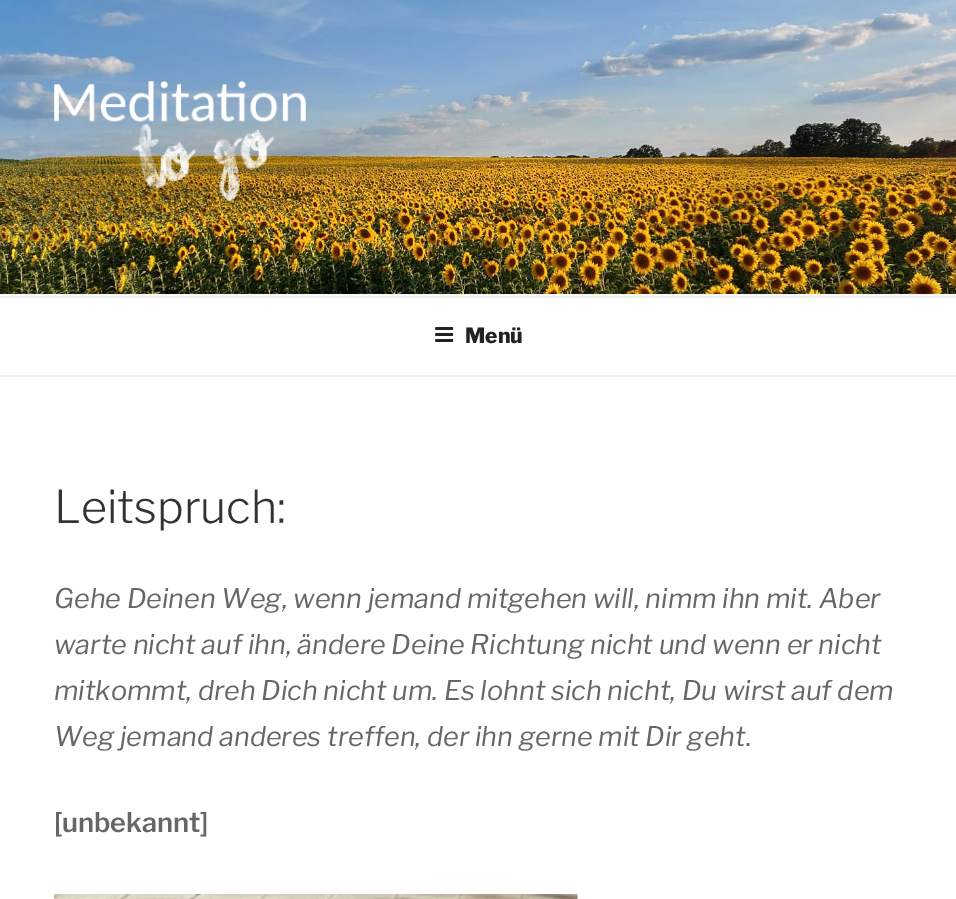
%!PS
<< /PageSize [956 899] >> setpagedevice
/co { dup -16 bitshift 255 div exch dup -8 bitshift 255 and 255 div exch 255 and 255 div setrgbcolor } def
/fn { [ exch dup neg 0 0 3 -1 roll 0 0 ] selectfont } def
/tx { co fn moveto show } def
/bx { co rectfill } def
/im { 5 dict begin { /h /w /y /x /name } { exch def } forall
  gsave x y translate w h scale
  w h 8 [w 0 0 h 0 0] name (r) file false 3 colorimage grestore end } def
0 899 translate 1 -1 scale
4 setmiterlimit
0 0 956 899 16#FFFFFF bx
0 294 956 2 16#FAFAFA bx
(media/1.raw) 0 0 956 294 im
(media/2.raw) 54 81 252 120 im
0 296 956 2 16#EEEEEE bx
0 375 956 2 16#EEEEEE bx
(media/3.raw) 435 327 19 15 im
(media/4.raw) 54 894 524 5 im
(Menü) 465 343 /LibreFranklin-Thin 21 16#222222 tx
(Leitspruch:) 54 523 /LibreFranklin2-Thin 45 16#333333 tx
(Gehe Deinen Weg, wenn jemand mitgehen will, nimm ihn mit. Aber) 54 608 /LibreFranklin-ThinItalic 27 16#666666 tx
(warte nicht auf ihn, ändere Deine Richtung nicht und wenn er nicht) 54 654 /LibreFranklin-ThinItalic 27 16#666666 tx
(mitkommt, dreh Dich nicht um. Es lohnt sich nicht, Du wirst auf dem) 54 700 /LibreFranklin-ThinItalic 27 16#666666 tx
(Weg jemand anderes treffen, der ihn gerne mit Dir geht.) 54 746 /LibreFranklin-ThinItalic 27 16#666666 tx
([unbekannt]) 54 832 /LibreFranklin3-Thin 27 16#666666 tx
showpage
